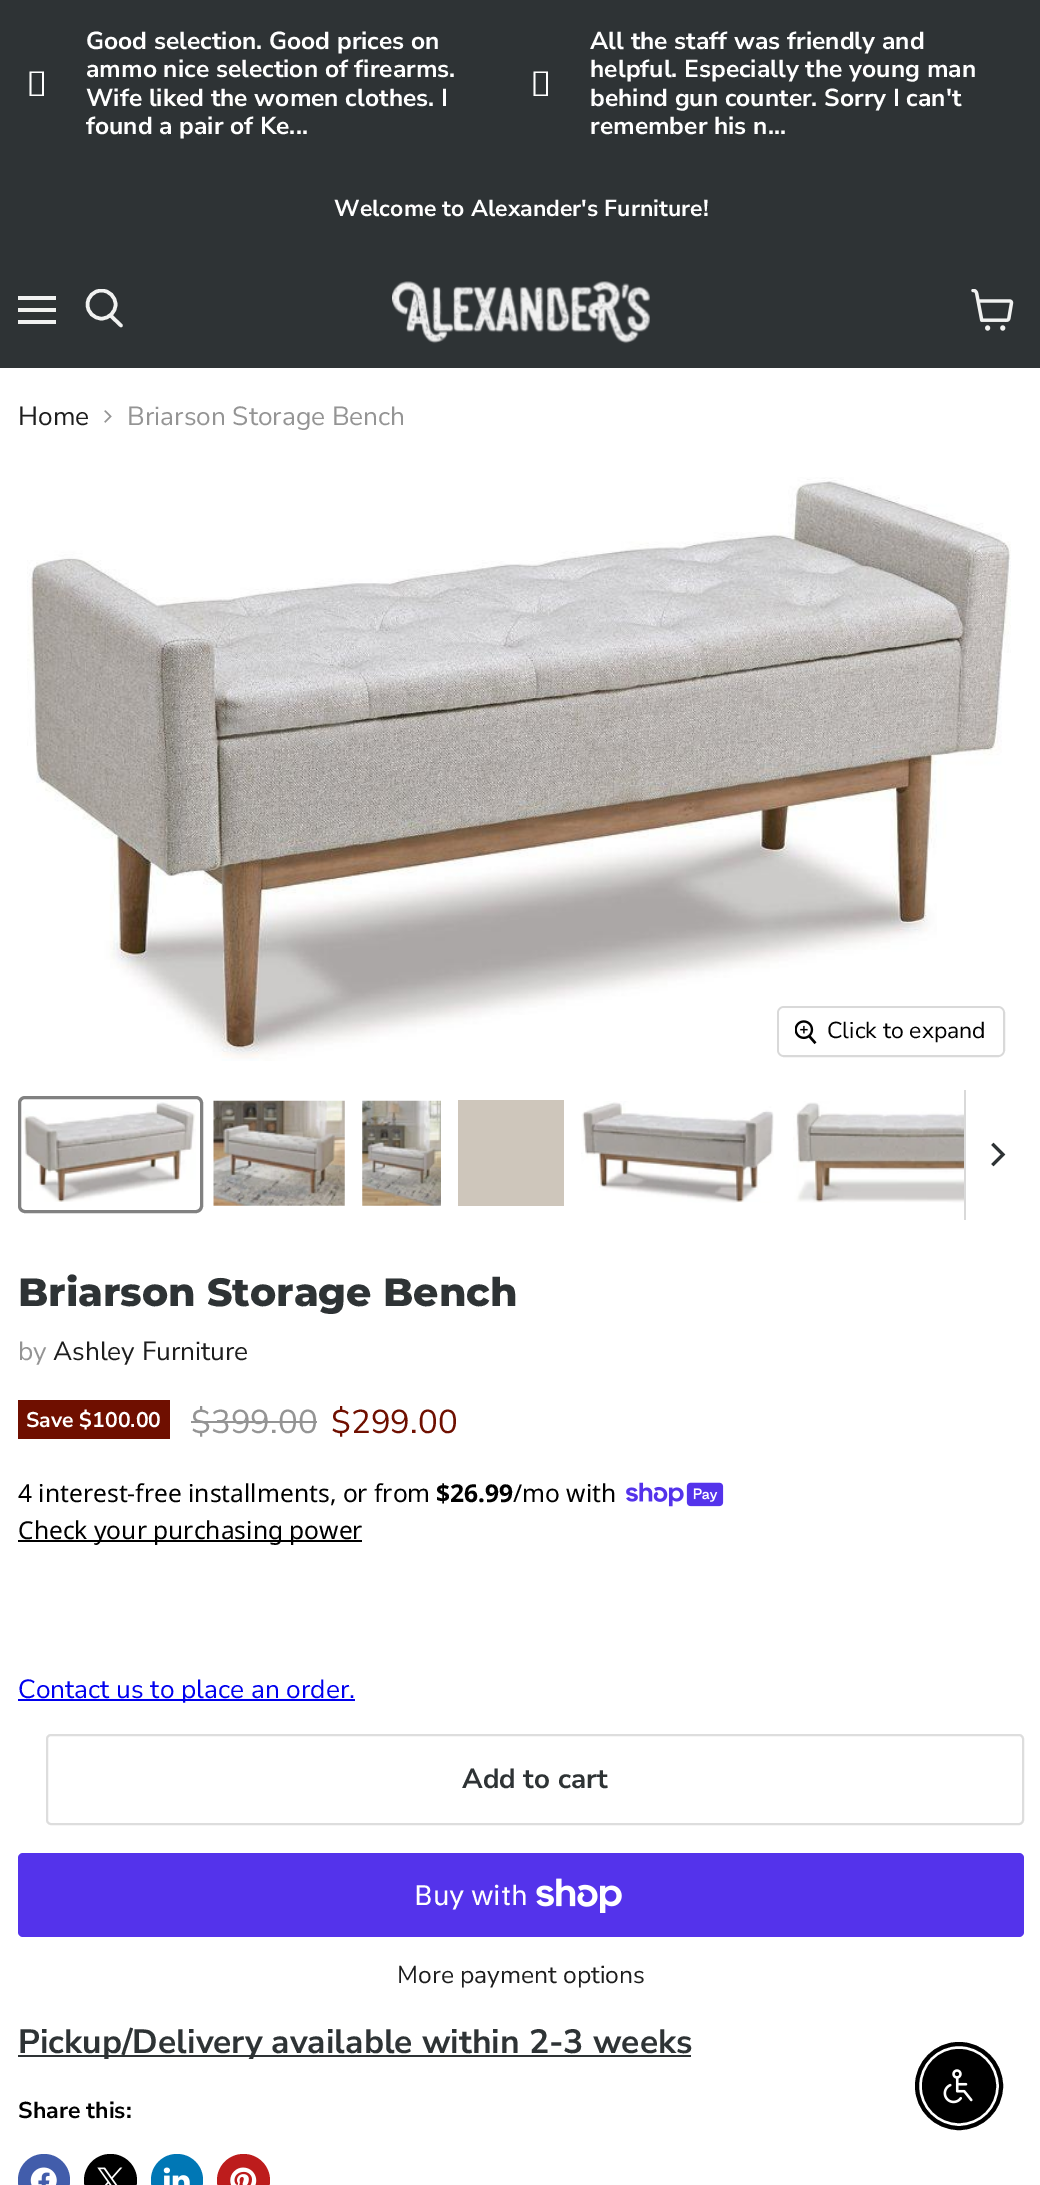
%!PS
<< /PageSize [1040 2185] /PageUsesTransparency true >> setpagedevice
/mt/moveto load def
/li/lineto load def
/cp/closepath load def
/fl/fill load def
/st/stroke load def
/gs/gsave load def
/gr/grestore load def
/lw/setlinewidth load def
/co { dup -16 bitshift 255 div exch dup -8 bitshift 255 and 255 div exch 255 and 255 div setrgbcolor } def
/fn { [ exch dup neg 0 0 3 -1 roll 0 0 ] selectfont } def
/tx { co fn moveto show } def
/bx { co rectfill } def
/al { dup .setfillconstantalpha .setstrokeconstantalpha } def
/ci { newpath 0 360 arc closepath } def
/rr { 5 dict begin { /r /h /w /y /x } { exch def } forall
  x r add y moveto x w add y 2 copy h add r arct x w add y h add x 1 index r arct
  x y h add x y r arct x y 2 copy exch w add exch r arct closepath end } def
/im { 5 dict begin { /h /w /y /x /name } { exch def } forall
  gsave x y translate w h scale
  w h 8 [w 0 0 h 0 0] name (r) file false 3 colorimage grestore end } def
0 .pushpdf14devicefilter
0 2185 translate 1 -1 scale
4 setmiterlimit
0 0 1040 2185 16#FFFFFF bx
0 0 1040 170 16#2E3335 bx
16#FFFFFF co
29.5 96 mt 29.5 71.5 li 44 71.5 li 44 96 li cp 31.5 94.5 mt 42 94.5 li 42 73 li 31.5 73 li cp fl
533.5 96 mt 533.5 71.5 li 548 71.5 li 548 96 li cp 535.5 94.5 mt 546 94.5 li 546 73 li 535.5 73 li cp fl
0 170 1040 198 16#2E3335 bx
18 296 38 4 16#F1F2F1 bx
18 308 38 4 16#F1F2F1 bx
18 320 38 4 16#F1F2F1 bx
3.5 lw
1 setlinecap
121 325.5 mt 111 316 li st
gs
84 289 40 42 rectclip
0 setlinecap
101.5 304.5 14 ci st
gr
(media/1.raw) 392 281 258 63 im
(media/2.raw) 971 289 43 42 im
(media/3.raw) 104 410 8 13 im
(media/4.raw) 27 477 984 584 im
16#D9D9D9 co
2 lw
0 setlinecap
778 1007 226 49 6 rr st
0.9 al
16#FFFFFF co
779 1008 224 47 5 rr fl
1 al
(media/5.raw) 795 1020 22 25 im
16#818181 co
3 lw
19.5 1097.5 182 114 5.5 rr st
(media/6.raw) 23 1101 173 101 im
(media/7.raw) 213 1100 132 106 im
(media/8.raw) 362 1100 79 106 im
458 1100 106 106 16#CEC6BB bx
(media/9.raw) 581 1101 193 102 im
(media/10.raw) 793 1101 171 102 im
964 1090 2 130 16#D9D9D9 bx
16#2E3335 co
3.1 lw
2 setlinecap
1003 1154.5 mt 993.5 1145 li 1003 1154.5 mt 993.5 1164 li st
18 1400 152 39 16#6F0F00 bx
191 1421 126 2 16#949494 bx
(media/11.raw) 626 1482 98 25 im
18 1540 344 2 16#000000 bx
18 1699 337 2 16#0000EE bx
16#DDDDDD co
2 lw
0 setlinecap
47 1735 976 89 4 rr st
16#5433EB co
18 1853 1006 84 5 rr fl
(media/12.raw) 536 1878 86 35 im
18 2055 673 2 16#2E3335 bx
16#425DAB co
18 2154 52 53 26 rr fl
(media/13.raw) 30 2167 27 18 im
16#000000 co
110.5 2180.5 26.5 ci fl
(media/14.raw) 97 2167 26 18 im
16#0077B5 co
151 2154 52 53 26 rr fl
(media/15.raw) 163 2167 27 18 im
16#BD1C1C co
243.5 2180.5 26.5 ci fl
(media/16.raw) 230 2167 27 18 im
16#000000 co
4 lw
959 2086 42 ci st
959 2086 36 ci gs fl gr
2 lw
st
(media/17.raw) 943 2069 30 35 im
(Good selection. Good prices on) 86 49 /NunitoSans-Bold 24.6 16#FFFFFF tx
(ammo nice selection of firearms.) 86 77 /NunitoSans-Bold 24.6 16#FFFFFF tx
(Wife liked the women clothes. I) 86 106 /NunitoSans-Bold 24.6 16#FFFFFF tx
(found a pair of Ke...) 86 134 /NunitoSans-Bold 24.6 16#FFFFFF tx
(All the staff was friendly and) 590 49 /NunitoSans-Bold 24.6 16#FFFFFF tx
(helpful. Especially the young man) 590 77 /NunitoSans-Bold 24.6 16#FFFFFF tx
(behind gun counter. Sorry I can't) 590 106 /NunitoSans-Bold 24.6 16#FFFFFF tx
(remember his n...) 590 134 /NunitoSans-Bold 24.6 16#FFFFFF tx
(Welcome to Alexander's Furniture!) 334 216 /NunitoSans-Bold 23 16#FFFFFF tx
(Home) 18 425 /NunitoSans-Regular 26.25 16#1D1D1D tx
(Briarson Storage Bench) 127 425 /NunitoSans-Regular 26.25 16#949494 tx
(Click to expand) 827 1038 /NunitoSans-Regular 23 16#000000 tx
(Briarson Storage Bench) 18 1306 /Montserrat-ExtraBold 39.4 16#2E3335 tx
(by) 18 1360 /NunitoSans-Regular 26.25 16#949494 tx
(Ashley Furniture) 53 1360 /NunitoSans-Regular 26.25 16#1D1D1D tx
(Save $100.00) 26 1427 /NunitoSans-Bold 21.25 16#FFFFFF tx
($399.00) 191 1433 /NunitoSans-Regular 33 16#949494 tx
($299.00) 331 1433 /NunitoSans-Regular 33 16#6F0F00 tx
(4 interest-free installments, or from) 18 1502 /NotoSans-Regular 24.6 16#000000 tx
($26.99) 436 1502 /NotoSans-Bold 24.6 16#000000 tx
(/mo with) 513 1502 /NotoSans-Regular 24.6 16#000000 tx
(Check your purchasing power) 18 1539 /NotoSans-Regular 24.6 16#000000 tx
(Contact us to place an order.) 18 1698 /NunitoSans-Regular 26.25 16#0000EE tx
(Add to cart) 462 1788 /NunitoSans-Bold 27.75 16#2E3335 tx
(Buy with) 414 1905 /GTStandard-Regular 28 16#FFFFFF tx
(More payment options) 397 1983 /NunitoSans-Regular 24.6 16#1D1D1D tx
(Pickup/Delivery available within 2-3 weeks) 18 2053 /NunitoSans-Bold 33.6 16#2E3335 tx
(Share this:) 18 2118 /NunitoSans-Bold 23 16#000000 tx
.poppdf14devicefilter showpage
